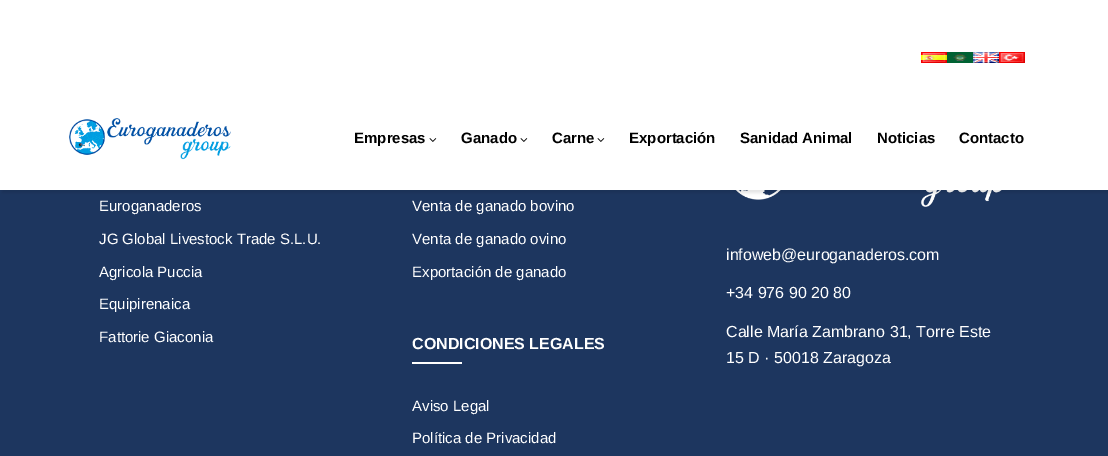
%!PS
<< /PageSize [1108 456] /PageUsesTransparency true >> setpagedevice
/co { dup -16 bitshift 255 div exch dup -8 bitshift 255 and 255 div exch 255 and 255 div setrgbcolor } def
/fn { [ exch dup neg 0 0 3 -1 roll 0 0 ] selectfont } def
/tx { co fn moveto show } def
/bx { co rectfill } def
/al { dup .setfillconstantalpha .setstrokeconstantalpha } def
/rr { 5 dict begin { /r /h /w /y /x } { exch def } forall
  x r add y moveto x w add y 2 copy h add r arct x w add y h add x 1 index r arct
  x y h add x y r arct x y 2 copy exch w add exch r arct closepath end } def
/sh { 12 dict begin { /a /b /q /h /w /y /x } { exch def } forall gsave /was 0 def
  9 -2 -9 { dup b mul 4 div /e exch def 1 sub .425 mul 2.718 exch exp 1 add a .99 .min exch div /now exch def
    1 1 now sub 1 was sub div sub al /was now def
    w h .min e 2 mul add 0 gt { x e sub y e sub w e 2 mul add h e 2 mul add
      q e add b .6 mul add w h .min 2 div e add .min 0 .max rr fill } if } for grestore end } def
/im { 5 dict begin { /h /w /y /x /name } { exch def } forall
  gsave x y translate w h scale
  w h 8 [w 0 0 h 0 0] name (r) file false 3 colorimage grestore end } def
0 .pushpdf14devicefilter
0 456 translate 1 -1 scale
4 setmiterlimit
0 0 1108 456 16#1D365F bx
(media/7.raw) 735 190 267 17 im
16#000000 co
2 3 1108 190 0 1.5 .1 sh
0 0 1108 190 16#FFFFFF bx
(media/1.raw) 921 52 26 11 im
(media/2.raw) 947 52 26 11 im
(media/3.raw) 973 52 26 11 im
(media/4.raw) 999 52 26 11 im
(media/5.raw) 69 118 162 42 im
(media/6.raw) 429 138 8 4 im
(media/6.raw) 520 138 8 4 im
(media/6.raw) 597 138 8 4 im
412 362 50 2 16#FFFFFF bx
(Empresas) 354 143 /LiberationSans-Bold 15 16#000000 tx
(Ganado) 461 143 /LiberationSans-Bold 15 16#000000 tx
(Carne) 552 143 /LiberationSans-Bold 15 16#000000 tx
(Exportación) 629 143 /LiberationSans-Bold 15 16#000000 tx
(Sanidad Animal) 740 143 /LiberationSans-Bold 15 16#000000 tx
(Noticias) 877 143 /LiberationSans-Bold 15 16#000000 tx
(Contacto) 959 143 /LiberationSans-Bold 15 16#000000 tx
(Euroganaderos) 99 211 /LiberationSans-Regular 15 16#FFFFFF tx
(JG Global Livestock Trade S.L.U.) 99 244 /LiberationSans-Regular 15 16#FFFFFF tx
(Agricola Puccia) 99 277 /LiberationSans-Regular 15 16#FFFFFF tx
(Equipirenaica) 99 309 /LiberationSans-Regular 15 16#FFFFFF tx
(Fattorie Giaconia) 99 342 /LiberationSans-Regular 15 16#FFFFFF tx
(Venta de ganado bovino) 412 211 /LiberationSans-Regular 15 16#FFFFFF tx
(Venta de ganado ovino) 412 244 /LiberationSans-Regular 15 16#FFFFFF tx
(Exportación de ganado) 412 277 /LiberationSans-Regular 15 16#FFFFFF tx
(CONDICIONES LEGALES) 412 349 /LiberationSans-Bold 16 16#FFFFFF tx
(Aviso Legal) 412 411 /LiberationSans-Regular 15 16#FFFFFF tx
(Política de Privacidad) 412 443 /LiberationSans-Regular 15 16#FFFFFF tx
(infoweb@euroganaderos.com) 726 260 /LiberationSans-Regular 16 16#FFFFFF tx
(+34 976 90 20 80) 726 298 /LiberationSans-Regular 16 16#FFFFFF tx
(Calle María Zambrano 31, Torre Este) 726 337 /LiberationSans-Regular 16 16#FFFFFF tx
(15 D · 50018 Zaragoza) 726 363 /LiberationSans-Regular 16 16#FFFFFF tx
.poppdf14devicefilter showpage
